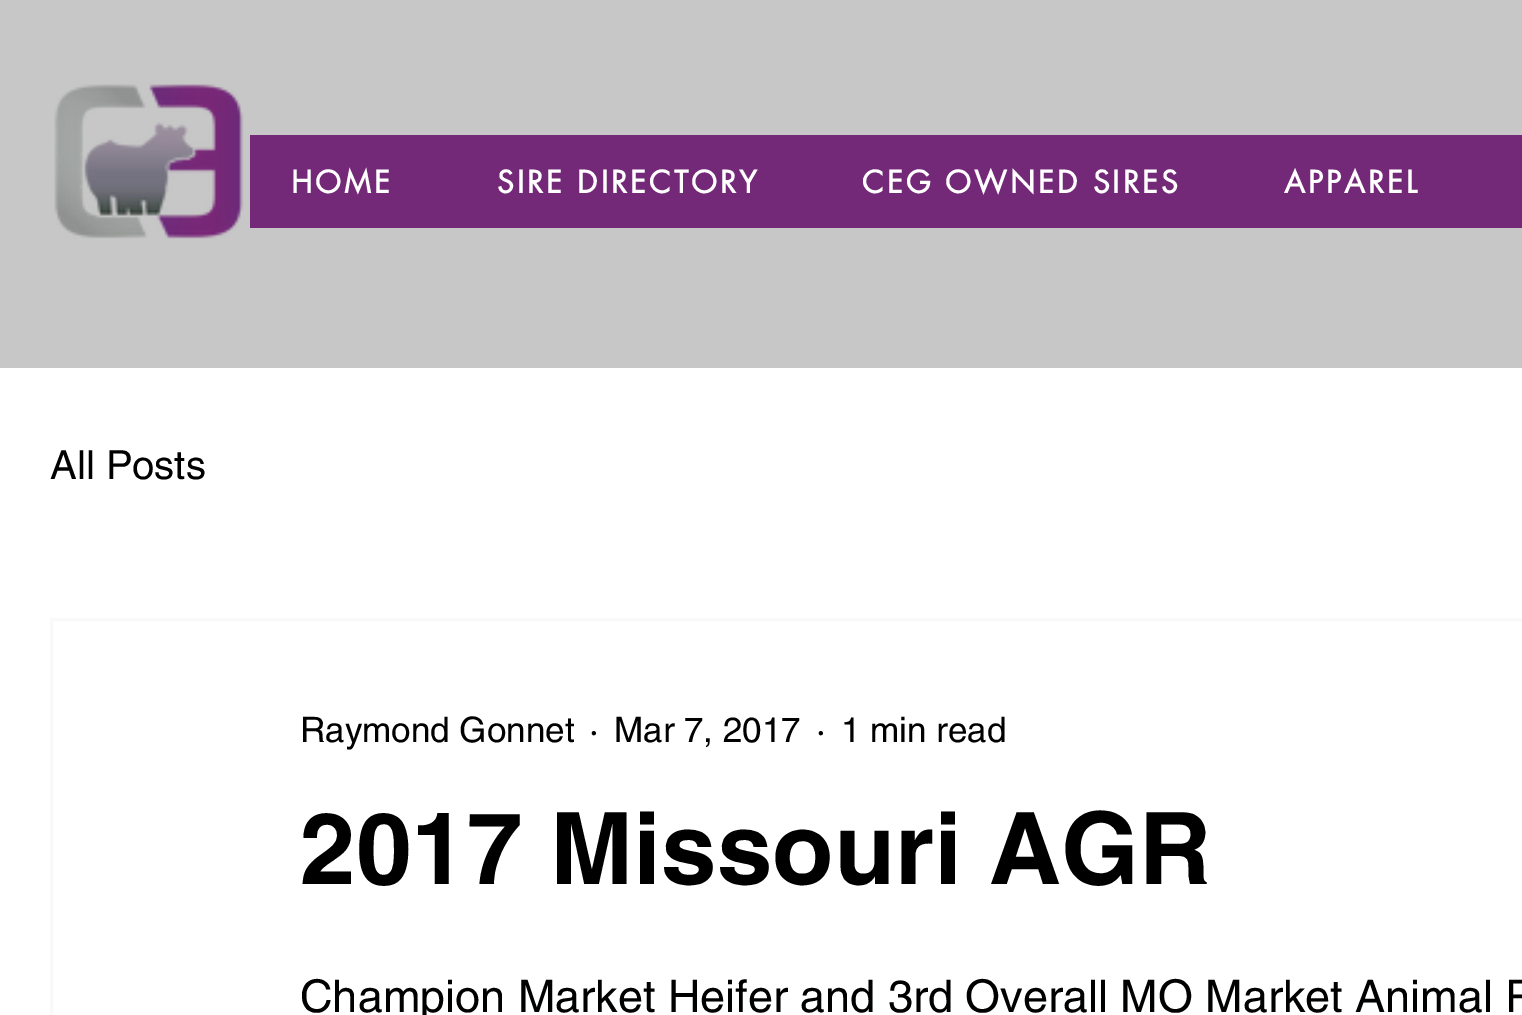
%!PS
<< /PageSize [1522 1015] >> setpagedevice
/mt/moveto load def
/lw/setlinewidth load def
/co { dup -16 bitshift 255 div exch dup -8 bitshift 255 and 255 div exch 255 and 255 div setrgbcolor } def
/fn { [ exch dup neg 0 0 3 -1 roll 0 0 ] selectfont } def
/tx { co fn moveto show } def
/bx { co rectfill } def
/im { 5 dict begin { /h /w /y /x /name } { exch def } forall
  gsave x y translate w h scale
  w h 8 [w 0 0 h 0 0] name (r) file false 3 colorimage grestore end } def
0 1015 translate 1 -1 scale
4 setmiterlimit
0 0 1522 1015 16#FFFFFF bx
0 0 1522 368 16#C7C7C7 bx
(media/1.raw) 54 84 190 155 im
250 135 1272 93 16#742978 bx
16#F9F9F9 co
3 lw
51.5 619.5 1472 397 rectstroke
/futura-Bold 30 fn
16#FFFFFF co
291 193 mt 3 0 (HOME) ashow
497 193 mt 3 0 (SIRE DIRECTORY) ashow
862 193 mt 3 0 (CEG OWNED SIRES) ashow
1284 193 mt 3 0 (APPAREL) ashow
(All Posts) 50 479 /helvetica-Regular 40 16#000000 tx
(Raymond Gonnet) 300 742 /helvetica-Regular 35 16#000000 tx
(·) 589 742 /helvetica-Regular 35 16#000000 tx
(Mar 7, 2017) 614 742 /helvetica-Regular 35 16#000000 tx
(·) 816 742 /helvetica-Regular 35 16#000000 tx
(1 min read) 841 742 /helvetica-Regular 35 16#000000 tx
(2017 Missouri AGR) 300 884 /helvetica-Bold 100 16#000000 tx
(Champion Market Heifer and 3rd Overall MO Market Animal R) 300 1012 /helvetica-Regular 45 16#000000 tx
showpage
